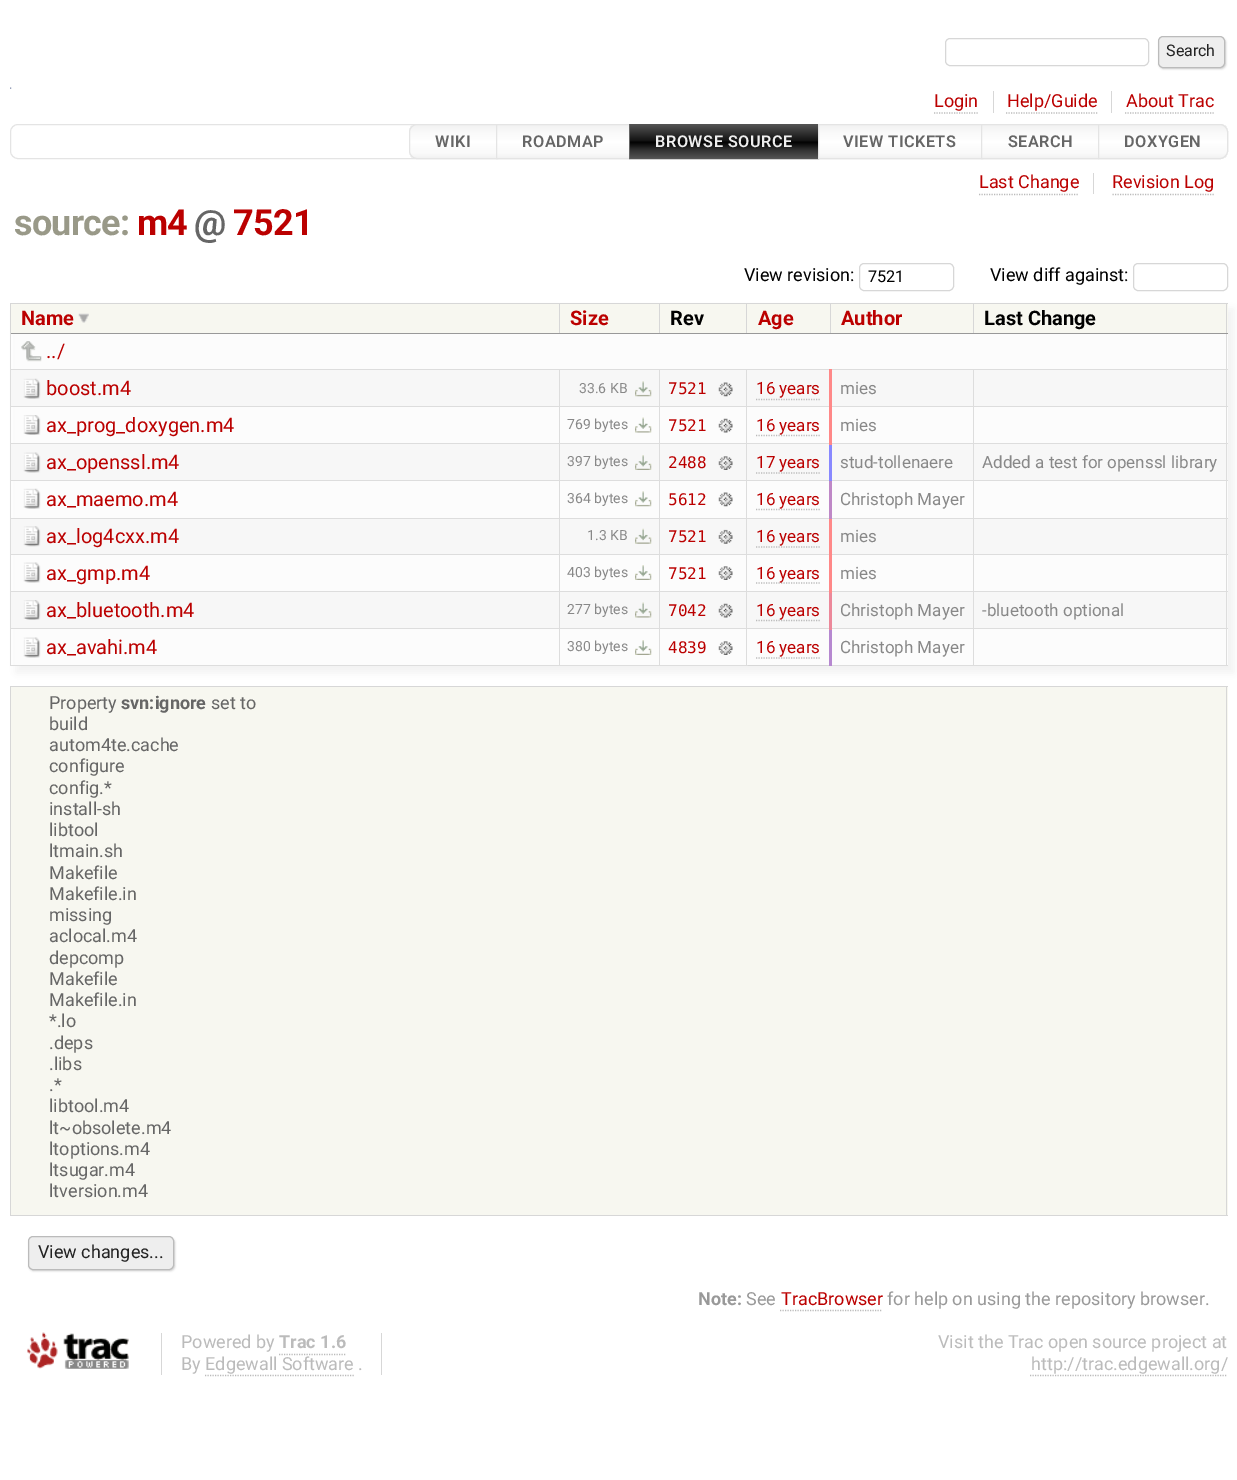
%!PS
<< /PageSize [1237 1480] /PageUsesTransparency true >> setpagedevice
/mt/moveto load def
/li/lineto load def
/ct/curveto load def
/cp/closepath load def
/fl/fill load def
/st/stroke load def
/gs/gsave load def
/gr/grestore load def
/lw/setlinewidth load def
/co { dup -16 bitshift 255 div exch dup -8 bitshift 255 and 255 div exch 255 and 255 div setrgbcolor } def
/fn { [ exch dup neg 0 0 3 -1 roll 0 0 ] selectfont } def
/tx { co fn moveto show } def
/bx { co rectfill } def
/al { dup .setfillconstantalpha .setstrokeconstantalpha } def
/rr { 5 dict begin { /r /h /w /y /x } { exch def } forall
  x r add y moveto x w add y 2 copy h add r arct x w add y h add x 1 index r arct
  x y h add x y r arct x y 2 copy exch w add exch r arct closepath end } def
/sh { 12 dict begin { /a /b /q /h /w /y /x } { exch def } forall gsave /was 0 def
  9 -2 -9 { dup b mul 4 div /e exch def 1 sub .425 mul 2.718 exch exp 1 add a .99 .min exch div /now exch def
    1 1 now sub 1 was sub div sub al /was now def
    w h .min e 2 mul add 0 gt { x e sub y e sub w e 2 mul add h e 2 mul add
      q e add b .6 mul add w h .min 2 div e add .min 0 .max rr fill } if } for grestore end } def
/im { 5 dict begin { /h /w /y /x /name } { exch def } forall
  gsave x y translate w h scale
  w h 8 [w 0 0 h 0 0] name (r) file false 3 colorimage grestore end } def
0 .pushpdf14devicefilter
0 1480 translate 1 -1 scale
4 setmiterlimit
0 0 1237 1480 16#FFFFFF bx
16#D7D7D7 co
945.5 38.5 203 27 4.5 rr st
16#CCCCCC co
1159 38 67 31 5 1 1 sh
16#EEEEEE co
1158.5 36.5 66 31 4.5 rr gs fl gr
16#BBBBBB co
st
(media/1.raw) 10 87 2 2 im
993 91 1 22 16#D7D7D7 bx
16#BBBBBB co
1.2 lw
[1.25 1.25] 0 setdash
934 113 mt 979 113 li st
1111 91 1 22 16#D7D7D7 bx
16#BBBBBB co
1006 113 mt 1097.5 113 li st
1125 113 mt 1214 113 li st
16#E4E4E4 co
1 lw
[] 0 setdash
10.5 124.5 1217 34 7.5 rr st
gs
417 124 mt 498 124 li 498 159 li 417 159 li 412.5 159 409 155.5 409 151 ct 409 132 li 409 127.5 412.5 124 417 124 ct cp clip newpath
gs 409 125 mt 496 125 li 496 158 li 409 158 li cp clip newpath
<< /ShadingType 2 /ColorSpace /DeviceRGB /Coords [453 125 453 158] /Extend [true true] /Function << /FunctionType 3 /Domain [0 1] /Functions [<< /FunctionType 2 /Domain [0 1] /C0 [.949 .949 .949] /C1 [.98 .98 .98] /N 1 >> << /FunctionType 2 /Domain [0 1] /C0 [.98 .98 .98] /C1 [.996 .996 .996] /N 1 >> << /FunctionType 2 /Domain [0 1] /C0 [.996 .996 .996] /C1 [1 1 1] /N 1 >> << /FunctionType 2 /Domain [0 1] /C0 [1 1 1] /C1 [.98 .98 .98] /N 1 >> << /FunctionType 2 /Domain [0 1] /C0 [.98 .98 .98] /C1 [.949 .949 .949] /N 1 >>] /Bounds [.25 .49 .51 .85] /Encode [0 1 0 1 0 1 0 1 0 1] >> >> shfill gr
gr
417 124.5 mt 497.5 124.5 li 497.5 158.5 li 417 158.5 li 413 158.5 409.5 155 409.5 151 ct 409.5 132 li 409.5 128 413 124.5 417 124.5 ct cp st
gs 497 125 mt 629 125 li 629 158 li 497 158 li cp clip newpath
<< /ShadingType 2 /ColorSpace /DeviceRGB /Coords [563 125 563 158] /Extend [true true] /Function << /FunctionType 3 /Domain [0 1] /Functions [<< /FunctionType 2 /Domain [0 1] /C0 [.949 .949 .949] /C1 [.98 .98 .98] /N 1 >> << /FunctionType 2 /Domain [0 1] /C0 [.98 .98 .98] /C1 [.996 .996 .996] /N 1 >> << /FunctionType 2 /Domain [0 1] /C0 [.996 .996 .996] /C1 [1 1 1] /N 1 >> << /FunctionType 2 /Domain [0 1] /C0 [1 1 1] /C1 [.98 .98 .98] /N 1 >> << /FunctionType 2 /Domain [0 1] /C0 [.98 .98 .98] /C1 [.949 .949 .949] /N 1 >>] /Bounds [.25 .49 .51 .85] /Encode [0 1 0 1 0 1 0 1 0 1] >> >> shfill gr
496.5 124.5 133 34 rectstroke
16#666666 co
629.5 124.5 189 34 rectstroke
gs 630 124 mt 818 124 li 818 159 li 630 159 li cp clip newpath
<< /ShadingType 2 /ColorSpace /DeviceRGB /Coords [724 124 724 159] /Extend [true true] /Function << /FunctionType 3 /Domain [0 1] /Functions [<< /FunctionType 2 /Domain [0 1] /C0 [.333 .333 .333] /C1 [.2 .2 .2] /N 1 >> << /FunctionType 2 /Domain [0 1] /C0 [.2 .2 .2] /C1 [.067 .067 .067] /N 1 >> << /FunctionType 2 /Domain [0 1] /C0 [.067 .067 .067] /C1 [0 0 0] /N 1 >> << /FunctionType 2 /Domain [0 1] /C0 [0 0 0] /C1 [.2 .2 .2] /N 1 >> << /FunctionType 2 /Domain [0 1] /C0 [.2 .2 .2] /C1 [.333 .333 .333] /N 1 >>] /Bounds [.25 .49 .51 .75] /Encode [0 1 0 1 0 1 0 1 0 1] >> >> shfill gr
gs 819 125 mt 981 125 li 981 158 li 819 158 li cp clip newpath
<< /ShadingType 2 /ColorSpace /DeviceRGB /Coords [900 125 900 158] /Extend [true true] /Function << /FunctionType 3 /Domain [0 1] /Functions [<< /FunctionType 2 /Domain [0 1] /C0 [.949 .949 .949] /C1 [.98 .98 .98] /N 1 >> << /FunctionType 2 /Domain [0 1] /C0 [.98 .98 .98] /C1 [.996 .996 .996] /N 1 >> << /FunctionType 2 /Domain [0 1] /C0 [.996 .996 .996] /C1 [1 1 1] /N 1 >> << /FunctionType 2 /Domain [0 1] /C0 [1 1 1] /C1 [.98 .98 .98] /N 1 >> << /FunctionType 2 /Domain [0 1] /C0 [.98 .98 .98] /C1 [.949 .949 .949] /N 1 >>] /Bounds [.25 .49 .51 .85] /Encode [0 1 0 1 0 1 0 1 0 1] >> >> shfill gr
16#E4E4E4 co
818.5 124.5 164 34 rectstroke
gs 982 125 mt 1098 125 li 1098 158 li 982 158 li cp clip newpath
<< /ShadingType 2 /ColorSpace /DeviceRGB /Coords [1040 125 1040 158] /Extend [true true] /Function << /FunctionType 3 /Domain [0 1] /Functions [<< /FunctionType 2 /Domain [0 1] /C0 [.949 .949 .949] /C1 [.98 .98 .98] /N 1 >> << /FunctionType 2 /Domain [0 1] /C0 [.98 .98 .98] /C1 [.996 .996 .996] /N 1 >> << /FunctionType 2 /Domain [0 1] /C0 [.996 .996 .996] /C1 [1 1 1] /N 1 >> << /FunctionType 2 /Domain [0 1] /C0 [1 1 1] /C1 [.98 .98 .98] /N 1 >> << /FunctionType 2 /Domain [0 1] /C0 [.98 .98 .98] /C1 [.949 .949 .949] /N 1 >>] /Bounds [.25 .49 .51 .85] /Encode [0 1 0 1 0 1 0 1 0 1] >> >> shfill gr
981.5 124.5 117 34 rectstroke
gs
1098 124 mt 1220 124 li 1224.5 124 1228 127.5 1228 132 ct 1228 151 li 1228 155.5 1224.5 159 1220 159 ct 1098 159 li cp clip newpath
gs 1099 125 mt 1228 125 li 1228 158 li 1099 158 li cp clip newpath
<< /ShadingType 2 /ColorSpace /DeviceRGB /Coords [1163 125 1163 158] /Extend [true true] /Function << /FunctionType 3 /Domain [0 1] /Functions [<< /FunctionType 2 /Domain [0 1] /C0 [.949 .949 .949] /C1 [.98 .98 .98] /N 1 >> << /FunctionType 2 /Domain [0 1] /C0 [.98 .98 .98] /C1 [.996 .996 .996] /N 1 >> << /FunctionType 2 /Domain [0 1] /C0 [.996 .996 .996] /C1 [1 1 1] /N 1 >> << /FunctionType 2 /Domain [0 1] /C0 [1 1 1] /C1 [.98 .98 .98] /N 1 >> << /FunctionType 2 /Domain [0 1] /C0 [.98 .98 .98] /C1 [.949 .949 .949] /N 1 >>] /Bounds [.25 .49 .51 .85] /Encode [0 1 0 1 0 1 0 1 0 1] >> >> shfill gr
gr
1098.5 124.5 mt 1220 124.5 li 1224 124.5 1227.5 128 1227.5 132 ct 1227.5 151 li 1227.5 155 1224 158.5 1220 158.5 ct 1098.5 158.5 li cp st
1093 173 1 21 16#D7D7D7 bx
16#BBBBBB co
1.2 lw
[1.25 1.25] 0 setdash
979 194.5 mt 1079 194.5 li st
1112.5 194.5 mt 1214 194.5 li st
16#D7D7D7 co
1 lw
[] 0 setdash
859.5 263.5 94 27 4.5 rr st
1133.5 263.5 94 27 4.5 rr st
16#F2F2F2 co
16 309 1218 364 0 4 1 sh
748 665 81 1 16#D7D7D7 bx
11 304 1217 29 16#F7F7F0 bx
973 303 255 1 16#D7D7D7 bx
15 334 1213 35 16#FCFCFC bx
11 370 1217 36 16#F7F7F7 bx
10 369 1218 1 16#DDDDDD bx
15 407 1213 36 16#FCFCFC bx
10 406 1218 1 16#DDDDDD bx
11 444 1217 36 16#F7F7F7 bx
10 443 1218 1 16#DDDDDD bx
15 481 1213 37 16#FCFCFC bx
10 480 1218 1 16#DDDDDD bx
11 519 1217 35 16#F7F7F7 bx
10 518 1218 1 16#DDDDDD bx
15 555 1213 36 16#FCFCFC bx
10 554 1218 1 16#DDDDDD bx
11 592 1217 36 16#F7F7F7 bx
10 591 1218 1 16#DDDDDD bx
15 629 1213 36 16#FCFCFC bx
10 628 1218 1 16#DDDDDD bx
1226 333 1 333 16#DDDDDD bx
1226 303 1 31 16#D7D7D7 bx
973 333 255 1 16#999999 bx
973 303 1 31 16#D7D7D7 bx
830 303 144 1 16#D7D7D7 bx
830 333 144 1 16#999999 bx
830 303 1 31 16#D7D7D7 bx
746 303 85 1 16#D7D7D7 bx
746 333 85 1 16#999999 bx
746 303 1 31 16#D7D7D7 bx
659 303 89 1 16#D7D7D7 bx
659 333 89 1 16#999999 bx
659 303 1 31 16#D7D7D7 bx
559 303 101 1 16#D7D7D7 bx
559 333 101 1 16#999999 bx
559 303 1 31 16#D7D7D7 bx
10 303 550 1 16#D7D7D7 bx
746 369 1 297 16#DDDDDD bx
659 665 89 1 16#DDDDDD bx
659 369 1 297 16#DDDDDD bx
559 665 101 1 16#DDDDDD bx
559 369 1 297 16#DDDDDD bx
10 665 550 1 16#DDDDDD bx
10 333 1 333 16#DDDDDD bx
10 333 550 1 16#999999 bx
10 303 1 31 16#D7D7D7 bx
(media/2.raw) 78 313 11 10 im
(media/3.raw) 21 341 21 21 im
(media/4.raw) 23 378 18 21 im
(media/5.raw) 635 381 17 16 im
(media/6.raw) 718 382 15 15 im
16#BBBBBB co
1.2 lw
[1.25 1.25] 0 setdash
756 399.5 mt 820 399.5 li st
(media/7.raw) 23 415 18 20 im
(media/8.raw) 635 417 17 16 im
(media/9.raw) 718 418 15 15 im
973 665 255 1 16#DDDDDD bx
973 369 1 297 16#DDDDDD bx
830 665 144 1 16#DDDDDD bx
829 628 3 38 16#B688D0 bx
829 590 3 40 16#EC889A bx
829 516 3 77 16#FF8888 bx
829 479 3 40 16#BF88C7 bx
829 443 3 38 16#8888FF bx
829 369 3 76 16#FF8888 bx
16#BBBBBB co
756 435.5 mt 820 435.5 li st
(media/10.raw) 23 452 18 21 im
(media/11.raw) 635 455 17 15 im
(media/12.raw) 718 456 15 14 im
756 473 mt 820 473 li st
(media/13.raw) 23 488 18 21 im
(media/14.raw) 635 491 17 16 im
(media/15.raw) 718 492 15 15 im
756 509.5 mt 820 509.5 li st
(media/16.raw) 23 526 18 21 im
(media/17.raw) 635 528 17 16 im
(media/18.raw) 718 529 15 15 im
756 547 mt 820 547 li st
(media/19.raw) 23 562 18 21 im
(media/20.raw) 635 565 17 15 im
(media/21.raw) 718 566 15 14 im
756 583 mt 820 583 li st
(media/22.raw) 23 600 18 20 im
(media/23.raw) 635 602 17 16 im
(media/24.raw) 718 603 15 15 im
756 620.5 mt 820 620.5 li st
(media/19.raw) 23 637 18 21 im
(media/20.raw) 635 640 17 15 im
(media/21.raw) 718 641 15 14 im
756 658 mt 820 658 li st
11 687 1217 528 16#F7F7F0 bx
10 686 1218 1 16#D7D7D7 bx
1226 686 1 530 16#D7D7D7 bx
10 1215 1218 1 16#D7D7D7 bx
10 686 1 530 16#D7D7D7 bx
16#CCCCCC co
29 1238 146 33 5 1 1 sh
16#EEEEEE co
28.5 1236.5 145 33 4.5 rr gs fl gr
16#BBBBBB co
1 lw
[] 0 setdash
st
1.2 lw
[1.25 1.25] 0 setdash
780 1310.5 mt 882.5 1310.5 li st
(media/25.raw) 27 1332 102 37 im
381 1333 1 42 16#D7D7D7 bx
161 1333 1 42 16#D7D7D7 bx
16#BBBBBB co
279 1354.5 mt 346 1354.5 li st
205 1375.5 mt 354 1375.5 li st
1030 1375.5 mt 1227.5 1375.5 li st
(Search) 1166 56 /Roboto-Regular 16 16#222222 tx
(Login) 934 107 /Roboto-Regular 18 16#BB0000 tx
(Help/Guide) 1007 107 /Roboto-Regular 18 16#BB0000 tx
(About Trac) 1126 107 /Roboto-Regular 18 16#BB0000 tx
/Roboto-SemiBold 16.25 fn
16#666666 co
435 147 mt .5 0 (WIKI) ashow
522 147 mt .5 0 (ROADMAP) ashow
16#EEEEEE co
655 147 mt .5 0 (BROWSE SOURCE) ashow
16#666666 co
843 147 mt .5 0 (VIEW TICKETS) ashow
1008 147 mt .5 0 (SEARCH) ashow
1124 147 mt .5 0 (DOXYGEN) ashow
(Last Change) 979 188 /Roboto-Regular 18 16#BB0000 tx
(Revision Log) 1112 188 /Roboto-Regular 18 16#BB0000 tx
/Roboto-Bold 36 fn
16#999988 co
14 235 mt -.75 0 (source:) ashow
16#BB0000 co
137 235 mt -.75 0 (m4) ashow
16#666666 co
194 235 mt -.75 0 (@) ashow
16#BB0000 co
233 235 mt -.75 0 (7521) ashow
(View revision:) 744 281 /Roboto-Regular 18 16#000000 tx
(7521) 868 282 /Roboto-Regular 16.25 16#000000 tx
(View diff against:) 990 281 /Roboto-Regular 18 16#000000 tx
(Name) 21 325 /Roboto-Bold 20 16#BB0000 tx
(Size) 570 325 /Roboto-Bold 20 16#BB0000 tx
(Rev) 670 325 /Roboto-Bold 20 16#000000 tx
(Age) 758 325 /Roboto-Bold 20 16#BB0000 tx
(Author) 841 325 /Roboto-Bold 20 16#BB0000 tx
(Last Change) 984 325 /Roboto-Bold 20 16#000000 tx
(../) 46 358 /Roboto-Regular 20 16#BB0000 tx
(boost.m4) 46 395 /Roboto-Regular 20 16#BB0000 tx
(33.6 KB) 579 393 /Roboto-Regular 14 16#888888 tx
(7521) 668 394 /DejaVuSansMono-Regular 16 16#BB0000 tx
(16 years) 756 394 /Roboto-Regular 17 16#BB0000 tx
(mies) 840 394 /Roboto-Regular 17 16#888888 tx
(ax_prog_doxygen.m4) 46 432 /Roboto-Regular 20 16#BB0000 tx
(769 bytes) 567 429 /Roboto-Regular 14 16#888888 tx
(7521) 668 431 /DejaVuSansMono-Regular 16 16#BB0000 tx
(16 years) 756 431 /Roboto-Regular 17 16#BB0000 tx
(mies) 840 431 /Roboto-Regular 17 16#888888 tx
(ax_openssl.m4) 46 469 /Roboto-Regular 20 16#BB0000 tx
(397 bytes) 567 466 /Roboto-Regular 14 16#888888 tx
(2488) 668 468 /DejaVuSansMono-Regular 16 16#BB0000 tx
(17 years) 756 468 /Roboto-Regular 17 16#BB0000 tx
(stud-tollenaere) 840 468 /Roboto-Regular 17 16#888888 tx
(Added a test for openssl library) 982 468 /Roboto-Regular 17 16#888888 tx
(ax_maemo.m4) 46 506 /Roboto-Regular 20 16#BB0000 tx
(364 bytes) 567 503 /Roboto-Regular 14 16#888888 tx
(5612) 668 505 /DejaVuSansMono-Regular 16 16#BB0000 tx
(16 years) 756 505 /Roboto-Regular 17 16#BB0000 tx
(Christoph Mayer) 840 505 /Roboto-Regular 17 16#888888 tx
(ax_log4cxx.m4) 46 543 /Roboto-Regular 20 16#BB0000 tx
(1.3 KB) 587 540 /Roboto-Regular 14 16#888888 tx
(7521) 668 542 /DejaVuSansMono-Regular 16 16#BB0000 tx
(16 years) 756 542 /Roboto-Regular 17 16#BB0000 tx
(mies) 840 542 /Roboto-Regular 17 16#888888 tx
(ax_gmp.m4) 46 580 /Roboto-Regular 20 16#BB0000 tx
(403 bytes) 567 577 /Roboto-Regular 14 16#888888 tx
(7521) 668 579 /DejaVuSansMono-Regular 16 16#BB0000 tx
(16 years) 756 579 /Roboto-Regular 17 16#BB0000 tx
(mies) 840 579 /Roboto-Regular 17 16#888888 tx
(ax_bluetooth.m4) 46 617 /Roboto-Regular 20 16#BB0000 tx
(277 bytes) 567 614 /Roboto-Regular 14 16#888888 tx
(7042) 668 616 /DejaVuSansMono-Regular 16 16#BB0000 tx
(16 years) 756 616 /Roboto-Regular 17 16#BB0000 tx
(Christoph Mayer) 840 616 /Roboto-Regular 17 16#888888 tx
(-bluetooth optional) 982 616 /Roboto-Regular 17 16#888888 tx
(ax_avahi.m4) 46 654 /Roboto-Regular 20 16#BB0000 tx
(380 bytes) 567 651 /Roboto-Regular 14 16#888888 tx
(4839) 668 653 /DejaVuSansMono-Regular 16 16#BB0000 tx
(16 years) 756 653 /Roboto-Regular 17 16#BB0000 tx
(Christoph Mayer) 840 653 /Roboto-Regular 17 16#888888 tx
(Property) 49 709 /Roboto-Regular 18 16#666666 tx
(svn:ignore) 121 709 /Roboto-Bold 18 16#666666 tx
(set to) 211 709 /Roboto-Regular 18 16#666666 tx
(build) 49 730 /Roboto-Regular 18 16#666666 tx
(autom4te.cache) 49 751 /Roboto-Regular 18 16#666666 tx
(configure) 49 772 /Roboto-Regular 18 16#666666 tx
(config.*) 49 794 /Roboto-Regular 18 16#666666 tx
(install-sh) 49 815 /Roboto-Regular 18 16#666666 tx
(libtool) 49 836 /Roboto-Regular 18 16#666666 tx
(ltmain.sh) 49 857 /Roboto-Regular 18 16#666666 tx
(Makefile) 49 879 /Roboto-Regular 18 16#666666 tx
(Makefile.in) 49 900 /Roboto-Regular 18 16#666666 tx
(missing) 49 921 /Roboto-Regular 18 16#666666 tx
(aclocal.m4) 49 942 /Roboto-Regular 18 16#666666 tx
(depcomp) 49 964 /Roboto-Regular 18 16#666666 tx
(Makefile) 49 985 /Roboto-Regular 18 16#666666 tx
(Makefile.in) 49 1006 /Roboto-Regular 18 16#666666 tx
(*.lo) 49 1027 /Roboto-Regular 18 16#666666 tx
(.deps) 49 1049 /Roboto-Regular 18 16#666666 tx
(.libs) 49 1070 /Roboto-Regular 18 16#666666 tx
(.*) 49 1091 /Roboto-Regular 18 16#666666 tx
(libtool.m4) 49 1112 /Roboto-Regular 18 16#666666 tx
(lt~obsolete.m4) 49 1134 /Roboto-Regular 18 16#666666 tx
(ltoptions.m4) 49 1155 /Roboto-Regular 18 16#666666 tx
(ltsugar.m4) 49 1176 /Roboto-Regular 18 16#666666 tx
(ltversion.m4) 49 1197 /Roboto-Regular 18 16#666666 tx
(View changes...) 38 1258 /Roboto-Regular 18 16#222222 tx
(Note:) 698 1305 /Roboto-Bold 18 16#999999 tx
(See) 746 1305 /Roboto-Regular 18 16#999999 tx
(TracBrowser) 781 1305 /Roboto-Regular 18 16#BB0000 tx
(for help on using the repository browser.) 887 1305 /Roboto-Regular 18 16#999999 tx
(Powered by) 181 1348 /Roboto-Regular 18 16#BBBBBB tx
(Trac 1.6) 279 1348 /Roboto-Bold 18 16#BBBBBB tx
(By Edgewall Software .) 181 1370 /Roboto-Regular 18 16#BBBBBB tx
(Visit the Trac open source project at) 938 1348 /Roboto-Regular 18 16#BBBBBB tx
(http://trac.edgewall.org/) 1031 1370 /Roboto-Regular 18 16#BBBBBB tx
.poppdf14devicefilter showpage
